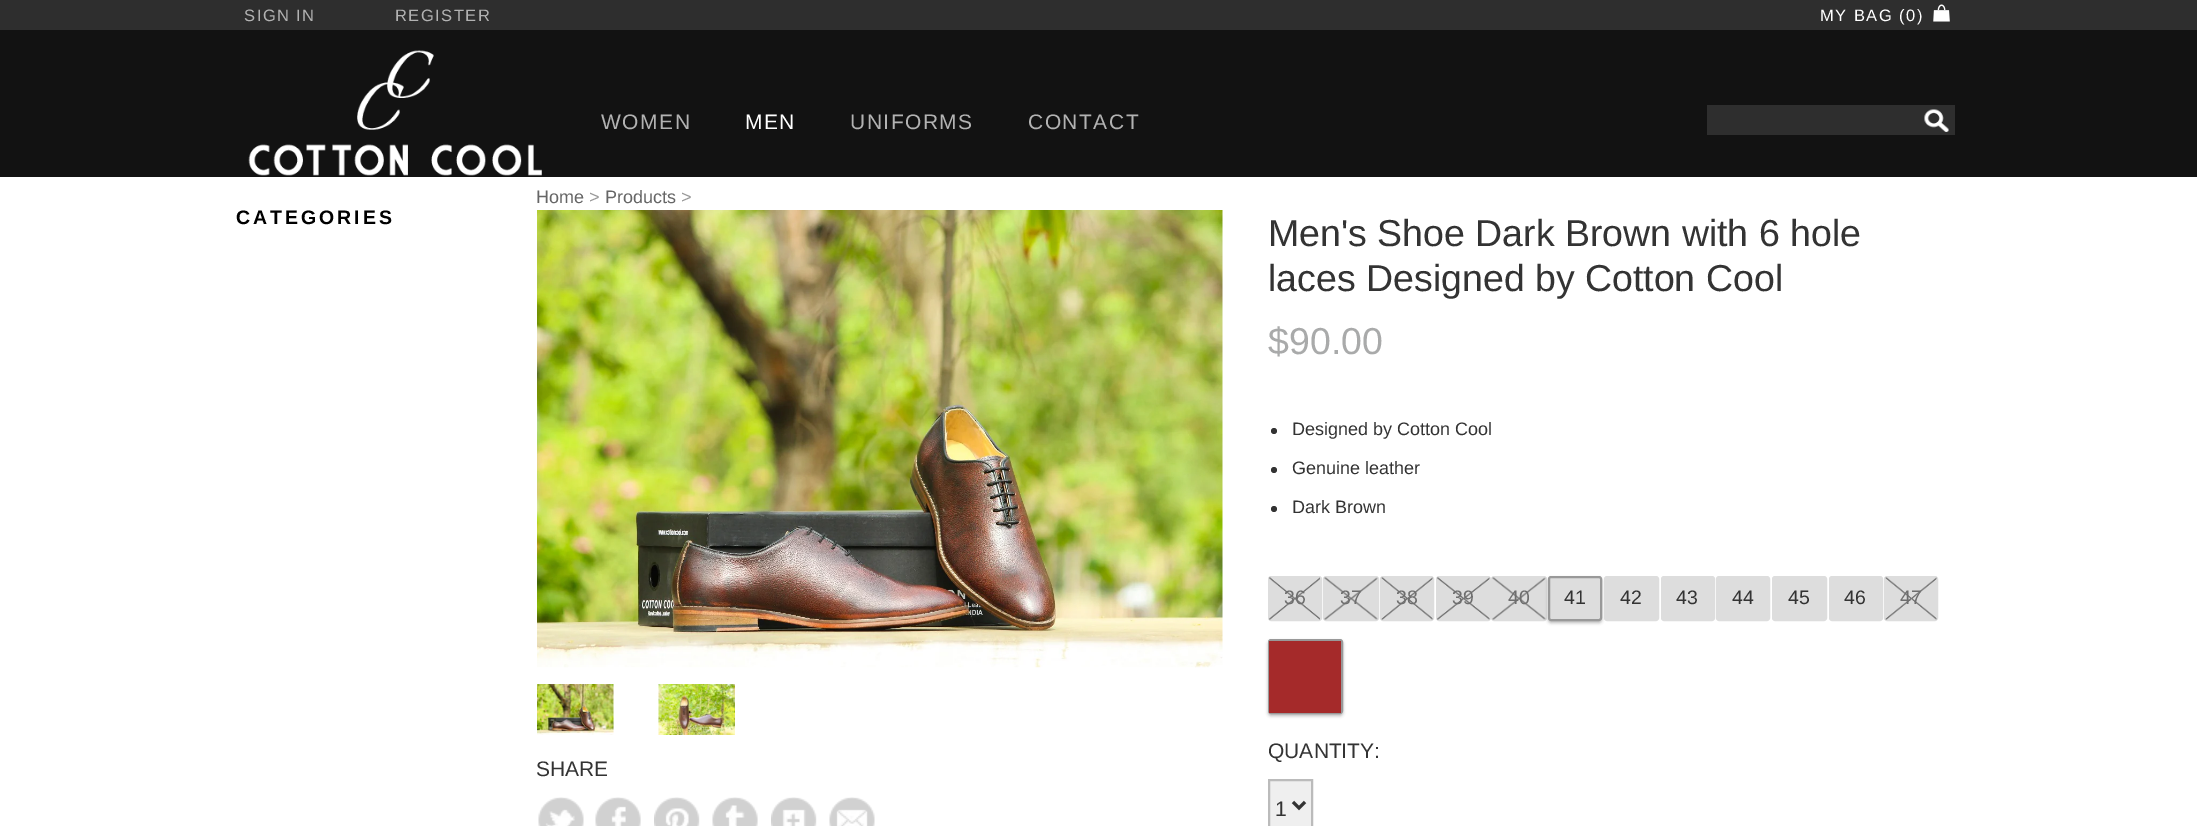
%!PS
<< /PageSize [2197 826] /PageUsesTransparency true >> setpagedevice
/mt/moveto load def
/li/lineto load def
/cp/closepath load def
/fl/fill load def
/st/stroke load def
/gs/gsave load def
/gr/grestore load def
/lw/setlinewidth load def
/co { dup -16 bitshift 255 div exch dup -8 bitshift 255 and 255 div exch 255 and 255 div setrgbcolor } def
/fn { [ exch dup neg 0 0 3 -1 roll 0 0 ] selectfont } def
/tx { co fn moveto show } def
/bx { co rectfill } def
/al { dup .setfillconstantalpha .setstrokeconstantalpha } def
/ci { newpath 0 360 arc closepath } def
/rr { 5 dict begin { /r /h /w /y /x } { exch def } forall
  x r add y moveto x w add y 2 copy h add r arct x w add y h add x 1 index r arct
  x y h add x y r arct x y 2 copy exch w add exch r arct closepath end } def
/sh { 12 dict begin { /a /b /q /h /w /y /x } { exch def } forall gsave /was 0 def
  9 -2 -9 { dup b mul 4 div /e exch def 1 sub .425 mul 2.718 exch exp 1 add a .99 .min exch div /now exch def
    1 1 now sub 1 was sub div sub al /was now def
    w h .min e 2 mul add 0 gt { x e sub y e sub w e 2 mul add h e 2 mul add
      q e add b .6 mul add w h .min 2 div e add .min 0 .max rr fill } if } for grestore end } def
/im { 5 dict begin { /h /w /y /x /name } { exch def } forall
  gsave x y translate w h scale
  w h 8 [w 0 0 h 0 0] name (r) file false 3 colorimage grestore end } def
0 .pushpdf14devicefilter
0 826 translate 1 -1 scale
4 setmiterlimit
0 0 2197 826 16#FFFFFF bx
0 0 2197 30 16#2E2E2E bx
(media/1.raw) 1933 4 17 18 im
0 30 2197 147 16#121212 bx
(media/2.raw) 248 50 294 126 im
1707 105 248 30 16#2E2E2E bx
(media/3.raw) 1924 109 25 23 im
(media/4.raw) 537 210 686 458 im
(media/5.raw) 537 684 77 51 im
(media/6.raw) 658 684 77 51 im
16#333333 co
1274 431 3 ci fl
1274 470 3 ci fl
1274 509 3 ci fl
(media/7.raw) 538 797 46 29 im
(media/8.raw) 595 797 46 29 im
(media/9.raw) 654 797 46 29 im
(media/10.raw) 712 797 46 29 im
(media/11.raw) 771 797 46 29 im
(media/12.raw) 829 797 46 29 im
16#DDDDDD co
1269 577 52 43 2 rr gs fl gr
2 lw
st
(media/13.raw) 1269 577 51 43 im
1324 577 54 43 2 rr gs fl gr
st
(media/14.raw) 1324 577 54 43 im
1381 577 52 43 2 rr gs fl gr
st
(media/15.raw) 1381 577 52 43 im
1437 577 53 43 2 rr gs fl gr
st
(media/16.raw) 1437 577 53 43 im
1492 577 54 43 2 rr gs fl gr
st
(media/14.raw) 1492 577 54 43 im
16#000000 co
1548 578 54 45 3 1.5 .25 sh
16#DDDDDD co
1549 577 52 43 2 rr gs fl gr
16#999999 co
st
16#DDDDDD co
1605 577 53 43 2 rr gs fl gr
st
1662 577 52 43 2 rr gs fl gr
st
1717 577 52 43 2 rr gs fl gr
st
1773 577 53 43 2 rr gs fl gr
st
1830 577 52 43 2 rr gs fl gr
st
1885 577 52 43 2 rr gs fl gr
st
(media/15.raw) 1885 577 52 43 im
16#000000 co
1268 641 75 75 3 1.5 .25 sh
16#999999 co
1269 640 73 73 2 rr st
1269 641 72 72 16#A52A2A bx
16#EFEFEF co
1269 780 mt 1312 780 li 1312 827 li 1269 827 li cp gs fl gr
16#BBBBBB co
st
16#333333 co
3 lw
1293 802 mt 1299 808 li 1305 802 li st
/LiberationSans-Regular 16.5 fn
16#B2B2B2 co
244 21 mt 1.5 0 (SIGN IN) ashow
395 21 mt 1.5 0 (REGISTER) ashow
16#FFFFFF co
1820 21 mt 1.5 0 (MY BAG \(0\)) ashow
/LiberationSans-Regular 21 fn
16#B2B2B2 co
601 129 mt 1.5 0 (WOMEN) ashow
16#FFFFFF co
745 129 mt 1.5 0 (MEN) ashow
16#B2B2B2 co
850 129 mt 1.5 0 (UNIFORMS) ashow
1028 129 mt 1.5 0 (CONTACT) ashow
/LiberationSans-Bold 19.5 fn
16#000000 co
236 224 mt 3 0 (CATEGORIES) ashow
(Home) 536 203 /LiberationSans-Regular 18 16#666666 tx
(>) 589 203 /LiberationSans-Regular 18 16#999999 tx
(Products) 605 203 /LiberationSans-Regular 18 16#666666 tx
(>) 681 203 /LiberationSans-Regular 18 16#999999 tx
(Men's Shoe Dark Brown with 6 hole) 1268 246 /LiberationSans-Regular 37.5 16#333333 tx
(laces Designed by Cotton Cool) 1268 291 /LiberationSans-Regular 37.5 16#333333 tx
($90.00) 1268 354 /LiberationSans-Regular 37.5 16#A9AAAA tx
(Designed by Cotton Cool) 1292 435 /LiberationSans-Regular 18 16#333333 tx
(Genuine leather) 1292 474 /LiberationSans-Regular 18 16#333333 tx
(Dark Brown) 1292 513 /LiberationSans-Regular 18 16#333333 tx
(SHARE) 536 776 /LiberationSans-Regular 21 16#333333 tx
(36) 1284 604 /LiberationSans-Regular 19.5 16#6E6E6E tx
(37) 1340 604 /LiberationSans-Regular 19.5 16#6E6E6E tx
(38) 1396 604 /LiberationSans-Regular 19.5 16#6E6E6E tx
(39) 1452 604 /LiberationSans-Regular 19.5 16#6E6E6E tx
(40) 1508 604 /LiberationSans-Regular 19.5 16#6E6E6E tx
(41) 1564 604 /LiberationSans-Regular 19.5 16#333333 tx
(42) 1620 604 /LiberationSans-Regular 19.5 16#333333 tx
(43) 1676 604 /LiberationSans-Regular 19.5 16#333333 tx
(44) 1732 604 /LiberationSans-Regular 19.5 16#333333 tx
(45) 1788 604 /LiberationSans-Regular 19.5 16#333333 tx
(46) 1844 604 /LiberationSans-Regular 19.5 16#333333 tx
(47) 1900 604 /LiberationSans-Regular 19.5 16#6E6E6E tx
(QUANTITY:) 1268 758 /LiberationSans-Regular 21 16#333333 tx
(1) 1275 816 /LiberationSans-Regular 21 16#333333 tx
.poppdf14devicefilter showpage
